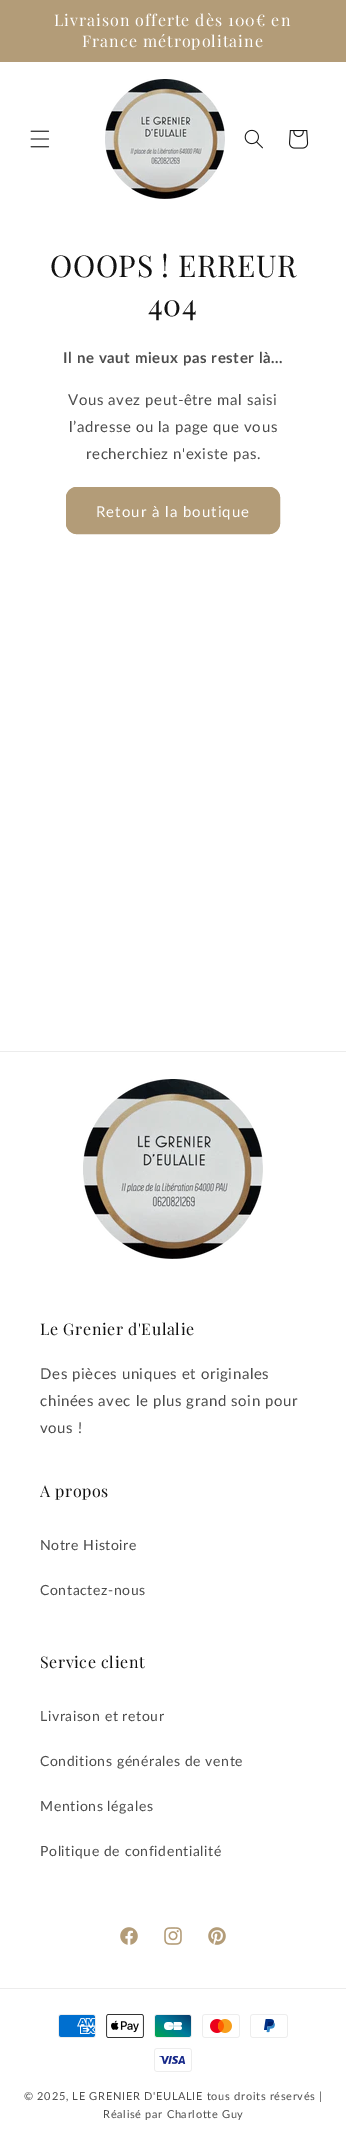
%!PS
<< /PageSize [346 2151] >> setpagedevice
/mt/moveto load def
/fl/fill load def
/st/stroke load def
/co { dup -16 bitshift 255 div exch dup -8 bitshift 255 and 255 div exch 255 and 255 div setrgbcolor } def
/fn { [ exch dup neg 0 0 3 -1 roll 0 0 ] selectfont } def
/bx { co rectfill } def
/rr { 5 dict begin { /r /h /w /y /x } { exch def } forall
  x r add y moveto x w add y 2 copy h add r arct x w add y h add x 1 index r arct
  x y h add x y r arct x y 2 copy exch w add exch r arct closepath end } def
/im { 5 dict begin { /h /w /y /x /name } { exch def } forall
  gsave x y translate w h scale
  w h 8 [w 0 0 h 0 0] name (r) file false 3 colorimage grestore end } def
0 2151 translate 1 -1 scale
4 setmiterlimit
0 0 346 2151 16#FFFFFF bx
0 0 346 62 16#B39C78 bx
(media/1.raw) 30 130 20 18 im
(media/2.raw) 105 79 120 120 im
(media/3.raw) 244 129 19 20 im
(media/4.raw) 289 130 20 19 im
66 487 214 47 11 rr fl
66.5 487.5 213 46 10.5 rr st
0 1051 346 1 16#ECECEC bx
(media/5.raw) 83 1079 180 180 im
(media/6.raw) 120 1927 18 18 im
(media/7.raw) 164 1927 18 18 im
(media/8.raw) 208 1927 18 18 im
0 1988 346 1 16#ECECEC bx
(media/9.raw) 58 2014 38 24 im
(media/10.raw) 106 2014 38 24 im
(media/11.raw) 154 2014 38 24 im
(media/12.raw) 202 2014 38 24 im
(media/13.raw) 250 2014 38 24 im
(media/14.raw) 154 2048 38 24 im
/PlayfairDisplay-Regular 16 fn
16#FFFFFF co
54 26 mt 1 0 (Livraison offerte dès 100€ en) ashow
82 47 mt 1 0 (France métropolitaine) ashow
/PlayfairDisplay-Regular 30 fn
16#121212 co
50 277 mt .6 0 (OOOPS ! ERREUR) ashow
148 316 mt .6 0 (404) ashow
/Lato-Bold 15 fn
16#4D4D4D co
63 363 mt .6 0 (Il ne vaut mieux pas rester là…) ashow
/Lato-Regular 15 fn
68 405 mt .6 0 (Vous avez peut-être mal saisi) ashow
69 432 mt .6 0 (l’adresse ou la page que vous) ashow
86 459 mt .6 0 (recherchiez n'existe pas.) ashow
16#FFFFFF co
96 517 mt 1 0 (Retour à la boutique) ashow
/PlayfairDisplay-Regular 16 fn
16#121212 co
40 1335 mt .6 0 (Le Grenier d'Eulalie) ashow
/Lato-Regular 15 fn
16#4D4D4D co
40 1379 mt .6 0 (Des pièces uniques et originales) ashow
40 1406 mt .6 0 (chinées avec le plus grand soin pour) ashow
40 1433 mt .6 0 (vous !) ashow
/PlayfairDisplay-Regular 16 fn
16#121212 co
40 1497 mt .6 0 (A propos) ashow
/Lato-Regular 14 fn
16#4D4D4D co
40 1550 mt .6 0 (Notre Histoire) ashow
40 1595 mt .6 0 (Contactez-nous) ashow
/PlayfairDisplay-Regular 16 fn
16#121212 co
40 1668 mt .6 0 (Service client) ashow
/Lato-Regular 14 fn
16#4D4D4D co
40 1721 mt .6 0 (Livraison et retour) ashow
40 1766 mt .6 0 (Conditions générales de vente) ashow
40 1811 mt .6 0 (Mentions légales) ashow
40 1856 mt .6 0 (Politique de confidentialité) ashow
/Lato-Regular 11 fn
24 2100 mt .7 0 (© 2025, LE GRENIER D'EULALIE tous droits réservés |) ashow
103 2118 mt .7 0 (Réalisé par Charlotte Guy) ashow
showpage
